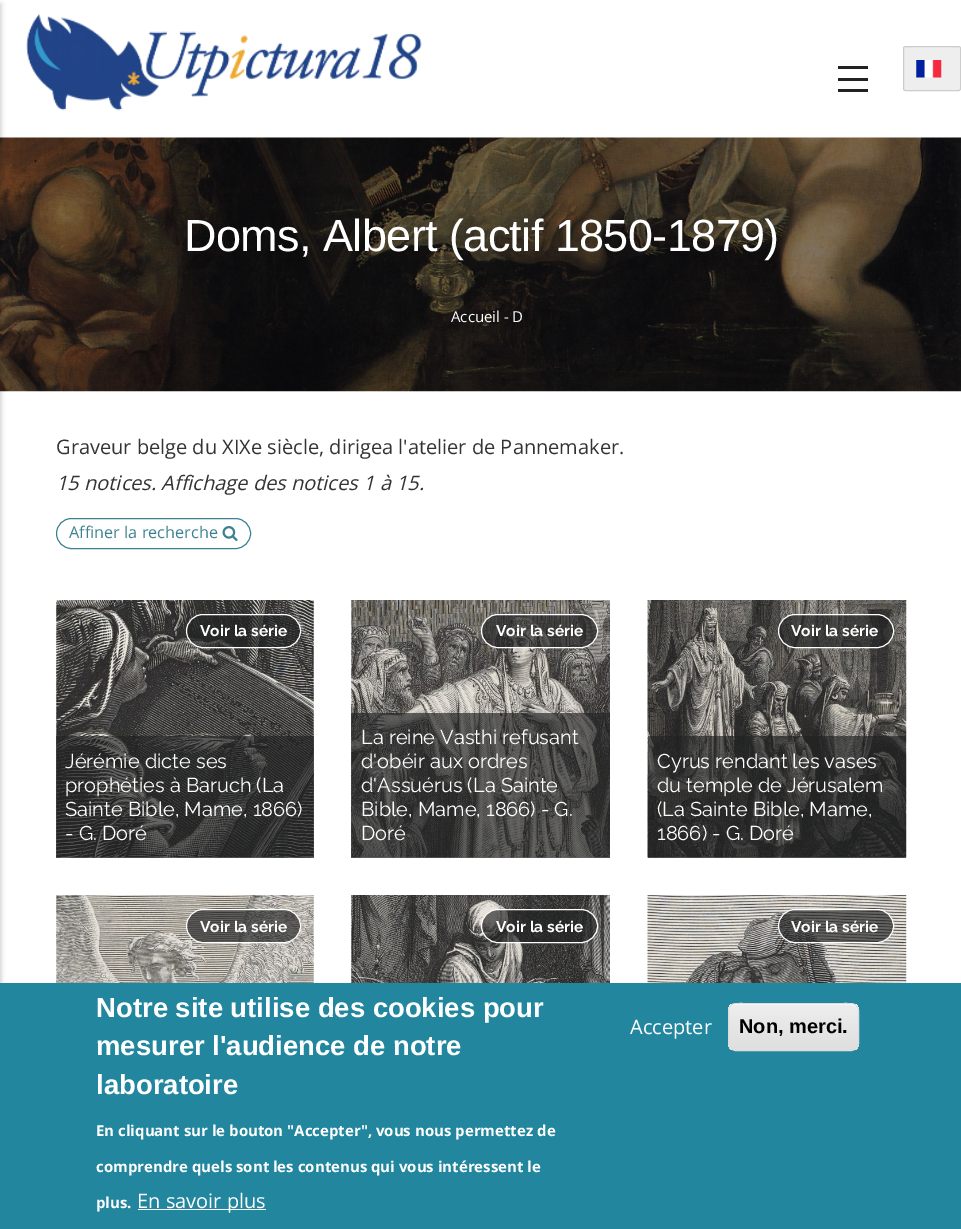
%!PS
<< /PageSize [961 1229] /PageUsesTransparency true >> setpagedevice
/mt/moveto load def
/li/lineto load def
/ct/curveto load def
/cp/closepath load def
/fl/fill load def
/st/stroke load def
/gs/gsave load def
/gr/grestore load def
/co { dup -16 bitshift 255 div exch dup -8 bitshift 255 and 255 div exch 255 and 255 div setrgbcolor } def
/fn { [ exch dup neg 0 0 3 -1 roll 0 0 ] selectfont } def
/tx { co fn moveto show } def
/bx { co rectfill } def
/al { dup .setfillconstantalpha .setstrokeconstantalpha } def
/rr { 5 dict begin { /r /h /w /y /x } { exch def } forall
  x r add y moveto x w add y 2 copy h add r arct x w add y h add x 1 index r arct
  x y h add x y r arct x y 2 copy exch w add exch r arct closepath end } def
/sh { 12 dict begin { /a /b /q /h /w /y /x } { exch def } forall gsave /was 0 def
  9 -2 -9 { dup b mul 4 div /e exch def 1 sub .425 mul 2.718 exch exp 1 add a .99 .min exch div /now exch def
    1 1 now sub 1 was sub div sub al /was now def
    w h .min e 2 mul add 0 gt { x e sub y e sub w e 2 mul add h e 2 mul add
      q e add b .6 mul add w h .min 2 div e add .min 0 .max rr fill } if } for grestore end } def
/im { 5 dict begin { /h /w /y /x /name } { exch def } forall
  gsave x y translate w h scale
  w h 8 [w 0 0 h 0 0] name (r) file false 3 colorimage grestore end } def
0 .pushpdf14devicefilter
0 1229 translate 1 -1 scale
4 setmiterlimit
0 0 961 1229 16#FFFFFF bx
(media/3.raw) 0 137 961 255 im
16#000000 co
-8 4 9 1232 0 2.5 .2 sh
838 66 30 3 16#222222 bx
838 78 30 3 16#222222 bx
838 89 30 3 16#222222 bx
(media/1.raw) 26 13 396 98 im
16#EEEEEE co
903.5 46.5 57 44 2 rr gs fl gr
16#CCCCCC co
st
(media/2.raw) 916 60 26 18 im
16#3D8291 co
56.5 518.5 194 30 15 rr st
(media/4.raw) 222 526 16 16 im
(media/5.raw) 56 600 258 258 im
0.66 al
16#202122 co
186.5 614.5 114 33 16.5 rr fl
1 al
16#FFFFFF co
186.5 614.5 114 33 16.5 rr st
0.66 al
56 736 258 122 16#202122 bx
1 al
(media/6.raw) 351 600 259 258 im
0.66 al
481.5 614.5 116 33 16.5 rr fl
1 al
16#FFFFFF co
481.5 614.5 116 33 16.5 rr st
0.66 al
351 713 259 145 16#202122 bx
1 al
(media/7.raw) 647 600 260 258 im
0.66 al
778.5 614.5 115 33 16.5 rr fl
1 al
16#FFFFFF co
778.5 614.5 115 33 16.5 rr st
0.66 al
648 736 258 122 16#202122 bx
1 al
(media/8.raw) 56 895 258 88 im
0.66 al
186.5 909.5 114 33 16.5 rr fl
1 al
16#FFFFFF co
186.5 909.5 114 33 16.5 rr st
(media/9.raw) 351 895 259 88 im
0.66 al
16#202122 co
481.5 909.5 116 33 16.5 rr fl
1 al
16#FFFFFF co
481.5 909.5 116 33 16.5 rr st
(media/10.raw) 647 895 260 88 im
0.66 al
16#202122 co
778.5 909.5 115 33 16.5 rr fl
1 al
16#FFFFFF co
778.5 909.5 115 33 16.5 rr st
0 983 961 246 16#22879E bx
138 1209 128 1 16#FFFFFF bx
gs
728 1003 131 48 8 rr clip newpath
gs 728 1004 mt 859 1004 li 859 1050 li 728 1050 li cp clip newpath
<< /ShadingType 2 /ColorSpace /DeviceRGB /Coords [793 1004 793 1050] /Extend [true true] /Function << /FunctionType 3 /Domain [0 1] /Functions [<< /FunctionType 2 /Domain [0 1] /C0 [.929 .929 .929] /C1 [.929 .929 .929] /N 1 >> << /FunctionType 2 /Domain [0 1] /C0 [.929 .929 .929] /C1 [.875 .875 .875] /N 1 >>] /Bounds [.05] /Encode [0 1 0 1] >> >> shfill gr
gr
735 1005 mt 851 1005 li 855 1005 858 1008 858 1011 ct 858 999 838 1004 832 1004 ct 754 1004 li 749 1004 729 999 729 1011 ct 729 1008 732 1005 735 1005 ct cp fl
16#DCDCDC co
728.5 1003.5 130 47 7.5 rr st
/LiberationSans-Regular 45 fn
16#FFFFFF co
184 251 mt -.6 0 (Doms, Albert \(actif 1850-1879\)) ashow
(Accueil -) 451 322 /OpenSans-Regular 15 16#FFFFFF tx
(D) 512 322 /OpenSans-Regular 15 16#FFFFFF tx
(Graveur belge du XIXe siècle, dirigea l'atelier de Pannemaker.) 56 454 /OpenSans-Regular 20 16#333333 tx
(15 notices. Affichage des notices 1 à 15.) 56 490 /OpenSans-Italic 20 16#333333 tx
(Affiner la recherche) 69 538 /OpenSans-Regular 16.25 16#3D8291 tx
(Voir la série) 200 636 /Raleway-Bold 15.5 16#FFFFFF tx
(Jérémie dicte ses) 65 768 /Raleway-Regular 20 16#FFFFFF tx
(prophéties à Baruch \(La) 65 792 /Raleway-Regular 20 16#FFFFFF tx
(Sainte Bible, Mame, 1866\)) 65 816 /Raleway-Regular 20 16#FFFFFF tx
(- G. Doré) 65 840 /Raleway-Regular 20 16#FFFFFF tx
(Voir la série) 496 636 /Raleway-Bold 15.5 16#FFFFFF tx
(La reine Vasthi refusant) 361 744 /Raleway-Regular 20 16#FFFFFF tx
(d'obéir aux ordres) 361 768 /Raleway-Regular 20 16#FFFFFF tx
(d'Assuérus \(La Sainte) 361 792 /Raleway-Regular 20 16#FFFFFF tx
(Bible, Mame, 1866\) - G.) 361 816 /Raleway-Regular 20 16#FFFFFF tx
(Doré) 361 840 /Raleway-Regular 20 16#FFFFFF tx
(Voir la série) 791 636 /Raleway-Bold 15.5 16#FFFFFF tx
(Cyrus rendant les vases) 657 768 /Raleway-Regular 20 16#FFFFFF tx
(du temple de Jérusalem) 657 792 /Raleway-Regular 20 16#FFFFFF tx
(\(La Sainte Bible, Mame,) 657 816 /Raleway-Regular 20 16#FFFFFF tx
(1866\) - G. Doré) 657 840 /Raleway-Regular 20 16#FFFFFF tx
(Voir la série) 200 932 /Raleway-Bold 15.5 16#FFFFFF tx
(Voir la série) 496 932 /Raleway-Bold 15.5 16#FFFFFF tx
(Voir la série) 791 932 /Raleway-Bold 15.5 16#FFFFFF tx
(Notre site utilise des cookies pour) 96 1017 /LiberationSans-Bold 27.5 16#FFFFFF tx
(mesurer l'audience de notre) 96 1055 /LiberationSans-Bold 27.5 16#FFFFFF tx
(laboratoire) 96 1094 /LiberationSans-Bold 27.5 16#FFFFFF tx
(En cliquant sur le bouton "Accepter", vous nous permettez de) 96 1136 /OpenSans-Bold 15 16#FFFFFF tx
(comprendre quels sont les contenus qui vous intéressent le) 96 1172 /OpenSans-Bold 15 16#FFFFFF tx
(plus.) 96 1208 /OpenSans-Bold 15 16#FFFFFF tx
(En savoir plus) 137 1208 /OpenSans-Regular 20 16#FFFFFF tx
(Accepter) 630 1034 /OpenSans-Regular 20 16#FFFFFF tx
(Non, merci.) 739 1033 /LiberationSans-Bold 20 16#000000 tx
.poppdf14devicefilter showpage
